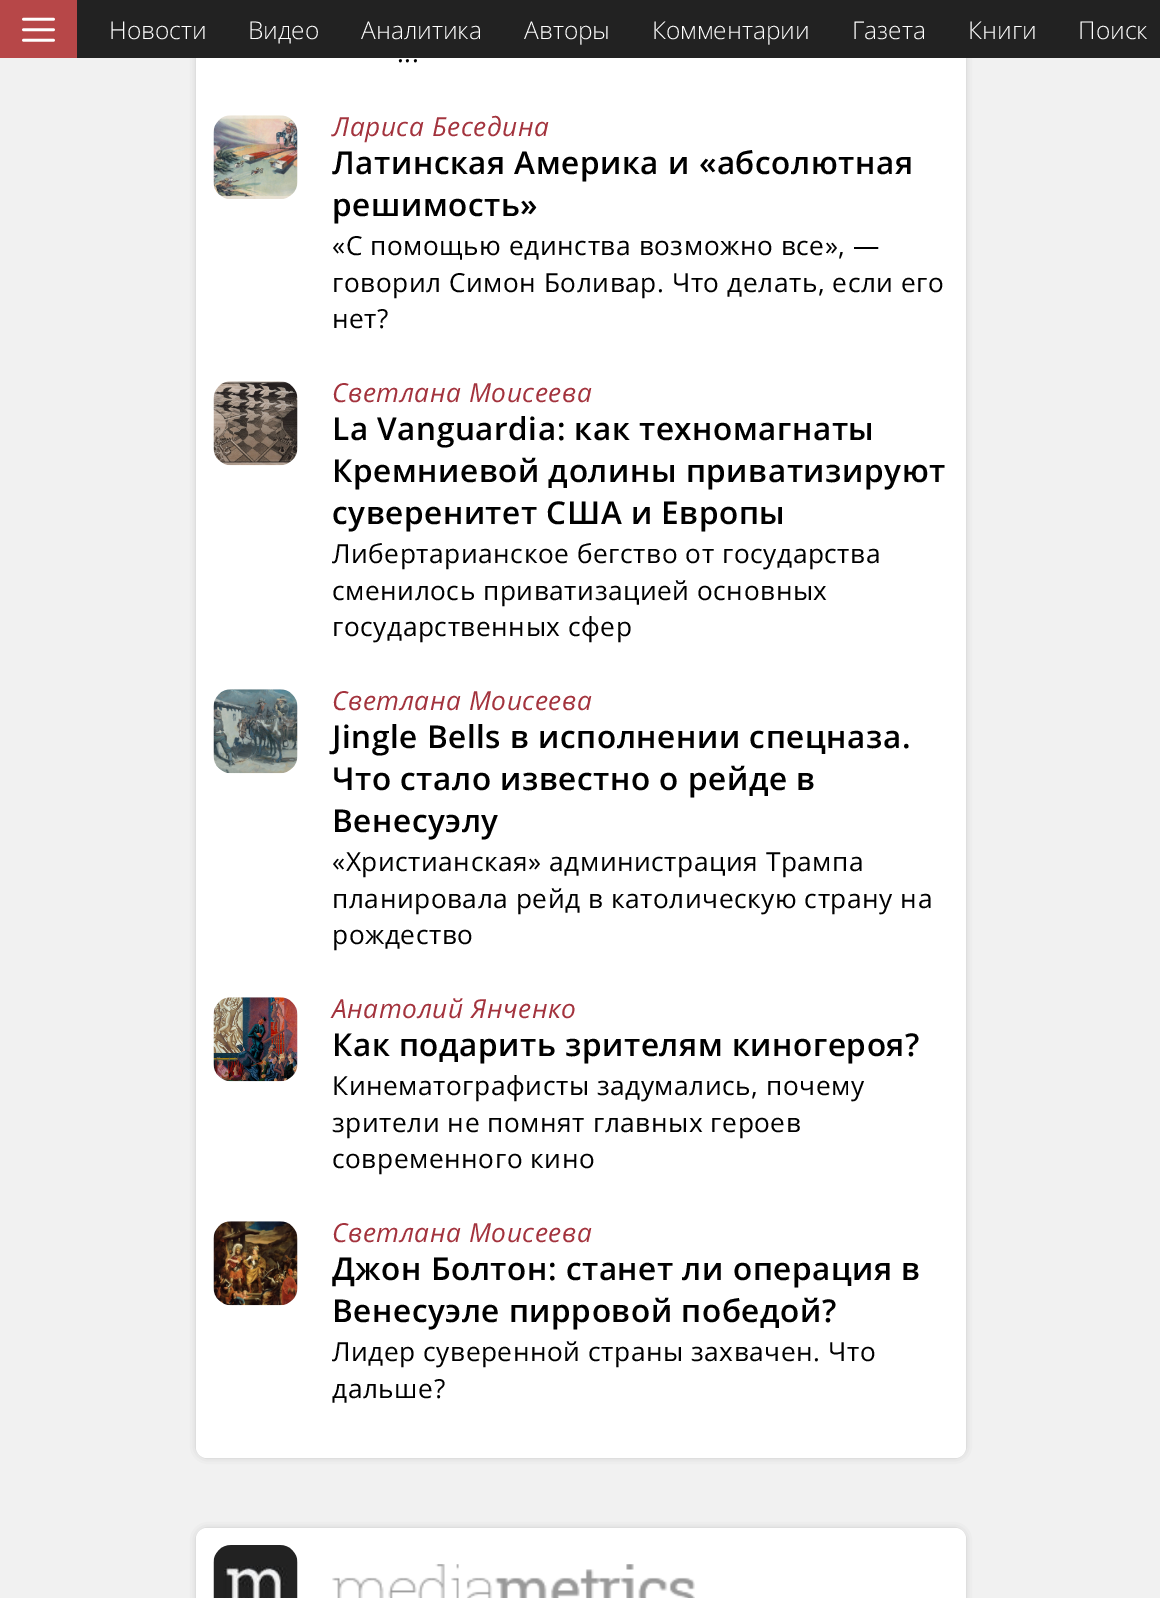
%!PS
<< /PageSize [1160 1598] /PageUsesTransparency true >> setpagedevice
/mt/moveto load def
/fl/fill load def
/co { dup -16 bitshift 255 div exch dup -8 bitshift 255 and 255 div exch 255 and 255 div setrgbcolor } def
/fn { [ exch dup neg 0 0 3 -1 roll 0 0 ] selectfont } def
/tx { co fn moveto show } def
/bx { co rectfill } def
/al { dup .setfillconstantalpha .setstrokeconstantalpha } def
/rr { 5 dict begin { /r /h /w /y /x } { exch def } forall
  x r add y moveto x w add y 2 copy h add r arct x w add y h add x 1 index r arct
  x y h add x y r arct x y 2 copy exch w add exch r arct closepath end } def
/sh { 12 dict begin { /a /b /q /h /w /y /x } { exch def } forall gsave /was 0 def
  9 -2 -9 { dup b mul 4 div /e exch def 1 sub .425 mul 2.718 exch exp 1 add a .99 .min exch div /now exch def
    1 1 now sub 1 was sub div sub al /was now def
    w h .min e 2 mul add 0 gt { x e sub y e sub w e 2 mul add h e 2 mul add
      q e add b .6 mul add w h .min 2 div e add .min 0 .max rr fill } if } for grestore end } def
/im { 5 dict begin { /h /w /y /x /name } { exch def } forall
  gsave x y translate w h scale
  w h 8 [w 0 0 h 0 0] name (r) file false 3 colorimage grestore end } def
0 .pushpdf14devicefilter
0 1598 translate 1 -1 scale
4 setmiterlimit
0 0 1160 1598 16#F1F1F1 bx
16#707070 co
201 -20 760 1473 5 5 1 sh
16#FFFFFF co
196 -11 770 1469 11 rr fl
77 0 1083 58 16#222222 bx
0 0 77 58 16#B74748 bx
(media/1.raw) 22 17 33 25 im
(media/2.raw) 213 115 85 84 im
(media/3.raw) 213 381 85 85 im
(media/4.raw) 213 689 85 85 im
(media/5.raw) 213 997 85 85 im
(media/6.raw) 213 1221 85 85 im
16#707070 co
201 1533 760 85 5 5 1 sh
16#FFFFFF co
196 1528 770 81 11 rr fl
(media/7.raw) 213 1545 85 53 im
(media/8.raw) 332 1564 363 34 im
(Новости) 109 39 /OpenSans-Light 24.5 16#FFFFFF tx
(Видео) 248 39 /OpenSans-Light 24.5 16#FFFFFF tx
(Аналитика) 361 39 /OpenSans-Light 24.5 16#FFFFFF tx
(Авторы) 524 39 /OpenSans-Light 24.5 16#FFFFFF tx
(Комментарии) 652 39 /OpenSans-Light 24.5 16#FFFFFF tx
(Газета) 852 39 /OpenSans-Light 24.5 16#FFFFFF tx
(Книги) 968 39 /OpenSans-Light 24.5 16#FFFFFF tx
(Поиск) 1078 39 /OpenSans-Light 24.5 16#FFFFFF tx
/OpenSans-Regular 26.25 fn
16#000000 co
397 62 mt .55 0 (...) ashow
/OpenSans-Italic 26.25 fn
16#A3333D co
332 136 mt .55 0 (Лариса Беседина) ashow
/OpenSans-SemiBold 31.5 fn
16#000000 co
332 174 mt .55 0 (Латинская Америка и «абсолютная) ashow
332 216 mt .55 0 (решимость») ashow
/OpenSans-Regular 26.25 fn
332 255 mt .55 0 («С помощью единства возможно все», —) ashow
332 292 mt .55 0 (говорил Симон Боливар. Что делать, если его) ashow
332 328 mt .55 0 (нет?) ashow
/OpenSans-Italic 26.25 fn
16#A3333D co
332 402 mt .55 0 (Светлана Моисеева) ashow
/OpenSans-SemiBold 31.5 fn
16#000000 co
332 440 mt .55 0 (La Vanguardia: как техномагнаты) ashow
332 482 mt .55 0 (Кремниевой долины приватизируют) ashow
332 524 mt .55 0 (суверенитет США и Европы) ashow
/OpenSans-Regular 26.25 fn
332 563 mt .55 0 (Либертарианское бегство от государства) ashow
332 600 mt .55 0 (сменилось приватизацией основных) ashow
332 636 mt .55 0 (государственных сфер) ashow
/OpenSans-Italic 26.25 fn
16#A3333D co
332 710 mt .55 0 (Светлана Моисеева) ashow
/OpenSans-SemiBold 31.5 fn
16#000000 co
332 748 mt .55 0 (Jingle Bells в исполнении спецназа.) ashow
332 790 mt .55 0 (Что стало известно о рейде в) ashow
332 832 mt .55 0 (Венесуэлу) ashow
/OpenSans-Regular 26.25 fn
332 871 mt .55 0 («Христианская» администрация Трампа) ashow
332 908 mt .55 0 (планировала рейд в католическую страну на) ashow
332 944 mt .55 0 (рождество) ashow
/OpenSans-Italic 26.25 fn
16#A3333D co
332 1018 mt .55 0 (Анатолий Янченко) ashow
/OpenSans-SemiBold 31.5 fn
16#000000 co
332 1056 mt .55 0 (Как подарить зрителям киногероя?) ashow
/OpenSans-Regular 26.25 fn
332 1095 mt .55 0 (Кинематографисты задумались, почему) ashow
332 1132 mt .55 0 (зрители не помнят главных героев) ashow
332 1168 mt .55 0 (современного кино) ashow
/OpenSans-Italic 26.25 fn
16#A3333D co
332 1242 mt .55 0 (Светлана Моисеева) ashow
/OpenSans-SemiBold 31.5 fn
16#000000 co
332 1280 mt .55 0 (Джон Болтон: станет ли операция в) ashow
332 1322 mt .55 0 (Венесуэле пирровой победой?) ashow
/OpenSans-Regular 26.25 fn
332 1361 mt .55 0 (Лидер суверенной страны захвачен. Что) ashow
332 1398 mt .55 0 (дальше?) ashow
.poppdf14devicefilter showpage
